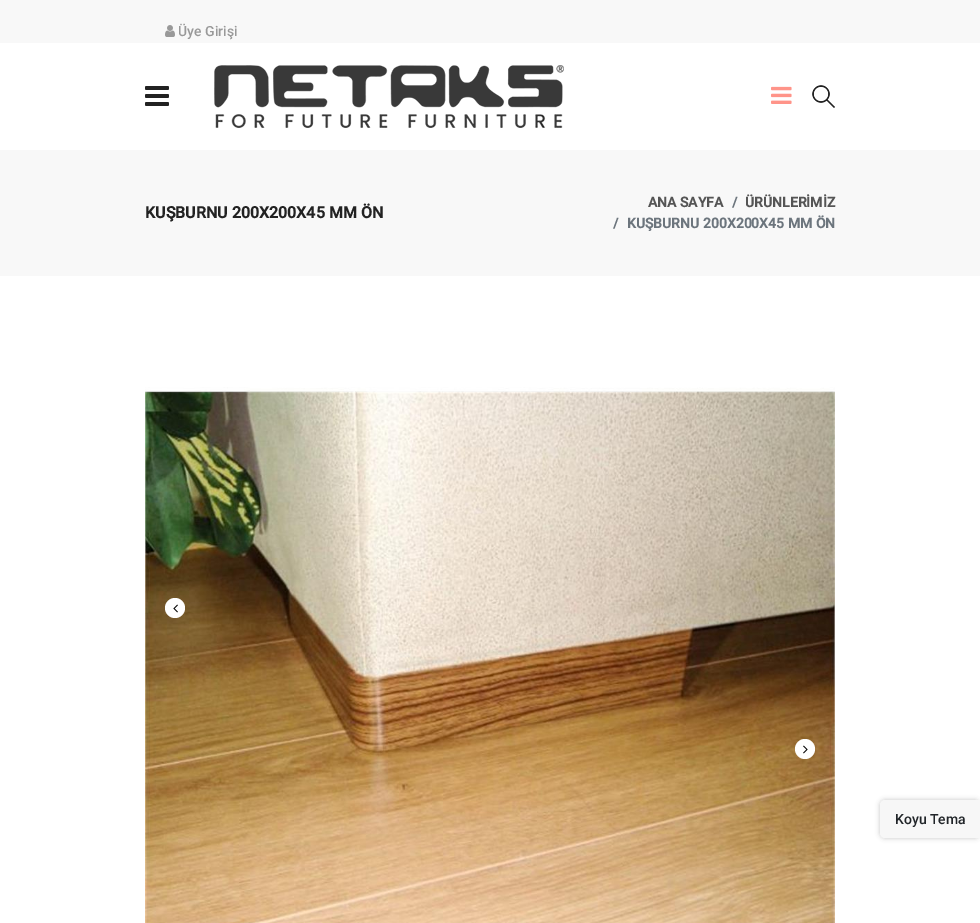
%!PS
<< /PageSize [980 923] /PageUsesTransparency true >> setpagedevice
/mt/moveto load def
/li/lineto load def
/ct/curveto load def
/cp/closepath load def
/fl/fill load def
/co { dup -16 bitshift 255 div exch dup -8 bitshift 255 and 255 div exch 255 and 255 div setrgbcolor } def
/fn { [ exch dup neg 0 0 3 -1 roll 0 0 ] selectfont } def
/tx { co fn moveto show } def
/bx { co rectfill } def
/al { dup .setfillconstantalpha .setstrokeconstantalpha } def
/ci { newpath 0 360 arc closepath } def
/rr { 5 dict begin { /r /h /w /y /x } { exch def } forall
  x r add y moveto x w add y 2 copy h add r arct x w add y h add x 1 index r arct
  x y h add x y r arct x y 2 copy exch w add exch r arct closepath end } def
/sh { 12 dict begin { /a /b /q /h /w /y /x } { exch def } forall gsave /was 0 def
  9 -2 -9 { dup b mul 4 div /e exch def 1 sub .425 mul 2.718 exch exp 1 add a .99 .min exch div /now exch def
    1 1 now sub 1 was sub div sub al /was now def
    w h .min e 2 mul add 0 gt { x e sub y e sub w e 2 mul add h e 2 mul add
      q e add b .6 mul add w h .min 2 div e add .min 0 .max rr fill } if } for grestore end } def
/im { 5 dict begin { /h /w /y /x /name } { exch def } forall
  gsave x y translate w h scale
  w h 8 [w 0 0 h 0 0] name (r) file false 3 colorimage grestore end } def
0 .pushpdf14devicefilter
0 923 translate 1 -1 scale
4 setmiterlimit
0 0 980 923 16#FFFFFF bx
0 0 980 43 16#F8F8F8 bx
(media/1.raw) 165 25 10 12 im
(media/2.raw) 145 86 24 20 im
(media/3.raw) 214 65 350 63 im
(media/4.raw) 771 86 21 18 im
(media/5.raw) 812 85 23 23 im
0 150 980 126 16#F8F8F8 bx
(media/6.raw) 145 387 690 536 im
16#FFFFFF co
175 608 10 ci fl
(media/7.raw) 173 604 5 9 im
805 749 10 ci fl
(media/8.raw) 803 745 5 9 im
16#9A9A9A co
880 800 100 38 5 2.5 .54 sh
16#F7F7F7 co
885 800 mt 980 800 li 980 838 li 885 838 li 882 838 880 836 880 833 ct 880 805 li 880 802 882 800 885 800 ct cp fl
(Üye Girişi) 178 36 /Roboto-Medium 14 16#999999 tx
(KUŞBURNU 200X200X45 MM ÖN) 145 218 /Roboto-Bold 16 16#222222 tx
(ANA SAYFA) 648 207 /Roboto-Bold 14 16#555555 tx
(/) 732 207 /Roboto-Bold 14 16#6C757D tx
(ÜRÜNLERİMİZ) 745 207 /Roboto-Bold 14 16#555555 tx
(/) 613 228 /Roboto-Bold 14 16#6C757D tx
(KUŞBURNU 200X200X45 MM ÖN) 627 228 /Roboto-Bold 14 16#6C757D tx
(Koyu Tema) 895 824 /Roboto-Medium 14 16#212529 tx
.poppdf14devicefilter showpage
